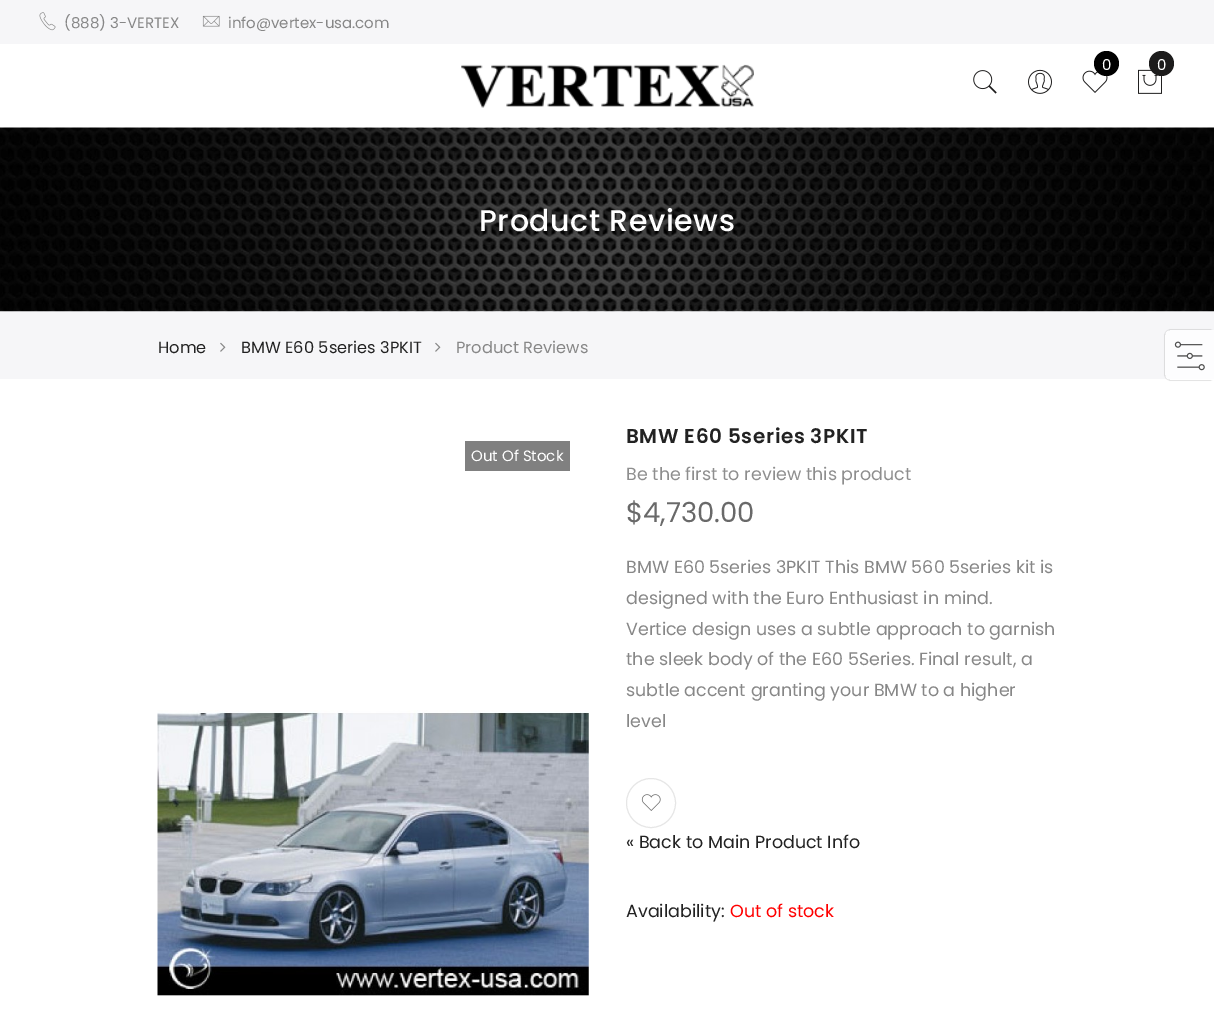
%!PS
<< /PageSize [1214 1013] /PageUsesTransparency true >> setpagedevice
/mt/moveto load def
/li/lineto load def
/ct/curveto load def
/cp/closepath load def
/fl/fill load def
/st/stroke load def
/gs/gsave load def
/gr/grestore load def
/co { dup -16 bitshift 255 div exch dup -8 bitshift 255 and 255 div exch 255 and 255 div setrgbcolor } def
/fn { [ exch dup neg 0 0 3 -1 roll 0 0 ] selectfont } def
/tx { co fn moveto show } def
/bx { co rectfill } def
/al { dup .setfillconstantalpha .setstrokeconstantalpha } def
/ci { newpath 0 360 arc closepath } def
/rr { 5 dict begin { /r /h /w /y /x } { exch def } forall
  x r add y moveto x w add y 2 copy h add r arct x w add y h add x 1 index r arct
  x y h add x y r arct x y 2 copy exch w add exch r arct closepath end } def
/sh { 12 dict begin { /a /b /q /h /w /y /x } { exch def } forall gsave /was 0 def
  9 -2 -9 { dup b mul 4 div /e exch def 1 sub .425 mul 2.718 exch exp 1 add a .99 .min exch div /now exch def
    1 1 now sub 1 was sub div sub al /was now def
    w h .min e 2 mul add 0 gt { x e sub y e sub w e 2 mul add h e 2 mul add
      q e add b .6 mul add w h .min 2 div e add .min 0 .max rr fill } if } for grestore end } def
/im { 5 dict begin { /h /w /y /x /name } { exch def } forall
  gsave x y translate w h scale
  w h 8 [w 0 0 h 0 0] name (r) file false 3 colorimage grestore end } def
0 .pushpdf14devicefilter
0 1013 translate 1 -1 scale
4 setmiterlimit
0 0 1214 1013 16#FFFFFF bx
0 0 1214 44 16#F6F6F8 bx
(media/1.raw) 39 12 17 19 im
(media/2.raw) 202 15 18 12 im
(media/3.raw) 461 64 293 44 im
(media/4.raw) 1082 70 26 23 im
16#000000 co
1106.5 63.5 12.5 ci fl
(media/5.raw) 1138 69 24 25 im
16#1D1C1C co
1161.5 63.5 12.5 ci fl
(media/6.raw) 973 70 24 24 im
(media/7.raw) 1028 69 24 25 im
0 311 1214 68 16#F6F6F8 bx
(media/8.raw) 0 127 1214 185 im
(media/9.raw) 220 342 6 10 im
(media/9.raw) 435 342 6 10 im
gs
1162 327 mt 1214 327 li 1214 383 li 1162 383 li cp 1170 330 mt 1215 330 li 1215 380 li 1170 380 li 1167 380 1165 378 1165 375 ct 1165 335 li 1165 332 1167 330 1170 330 ct cp eoclip newpath
16#808080 co
1165 330 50 50 5 .5 .8 sh
gr
0.8 al
16#FFFFFF co
1170 330 mt 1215 330 li 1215 380 li 1170 380 li 1167 380 1165 378 1165 375 ct 1165 335 li 1165 332 1167 330 1170 330 ct cp fl
1 al
(media/10.raw) 1174 341 31 30 im
465 441 105 30 16#808080 bx
(media/11.raw) 157 710 432 286 im
16#E6E6E6 co
651 803 24.5 ci st
(media/12.raw) 641 794 20 17 im
(\(888\) 3-VERTEX) 64 28 /Poppins-Regular 15 16#878787 tx
(info@vertex-usa.com) 228 28 /Poppins-Regular 15 16#878787 tx
(0) 1102 70 /Poppins-Regular 15 16#FFFFFF tx
(0) 1157 70 /Poppins-Regular 15 16#FFFFFF tx
/Poppins-Medium 30 fn
479 231 mt .6 0 (Product Reviews) ashow
(Home) 158 353 /Poppins-Regular 16.25 16#222222 tx
(BMW E60 5series 3PKIT) 241 353 /Poppins-Regular 16.25 16#222222 tx
(Product Reviews) 456 353 /Poppins-Regular 16.25 16#878787 tx
(Out Of Stock) 471 461 /Poppins-Regular 15 16#FFFFFF tx
/Poppins-SemiBold 20 fn
16#222222 co
626 443 mt .6 0 (BMW E60 5series 3PKIT) ashow
(Be the first to review this product) 626 480 /Poppins-Regular 17.5 16#8E8E8E tx
($4,730.00) 626 522 /Poppins-Regular 27.5 16#696969 tx
(BMW E60 5series 3PKIT This BMW 560 5series kit is) 626 573 /Poppins-Regular 17.5 16#878787 tx
(designed with the Euro Enthusiast in mind.) 626 604 /Poppins-Regular 17.5 16#878787 tx
(Vertice design uses a subtle approach to garnish) 626 635 /Poppins-Regular 17.5 16#878787 tx
(the sleek body of the E60 5Series. Final result, a) 626 665 /Poppins-Regular 17.5 16#878787 tx
(subtle accent granting your BMW to a higher) 626 696 /Poppins-Regular 17.5 16#878787 tx
(level) 626 727 /Poppins-Regular 17.5 16#878787 tx
(« Back to Main Product Info) 626 848 /Poppins-Regular 17.5 16#222222 tx
(Availability:) 626 917 /Poppins-Regular 17.5 16#222222 tx
(Out of stock) 730 917 /Poppins-Regular 17.5 16#FF0000 tx
.poppdf14devicefilter showpage
